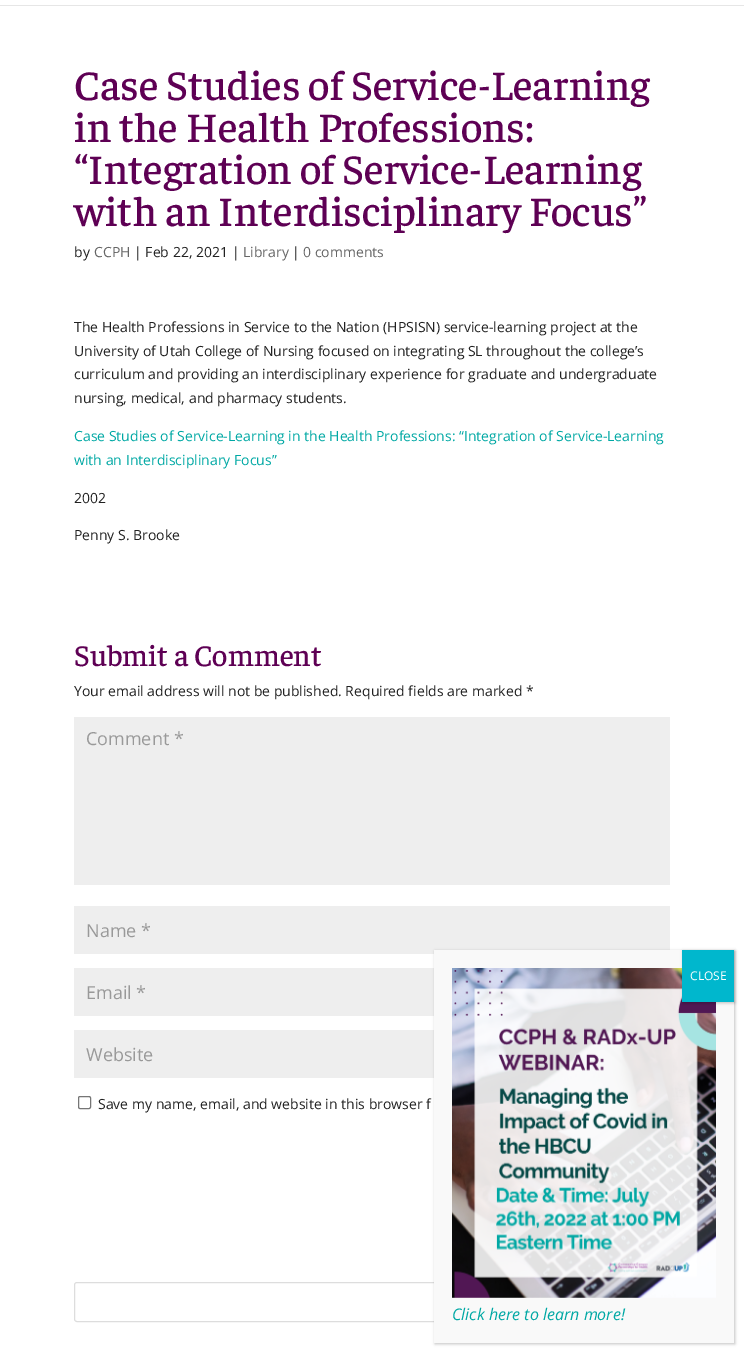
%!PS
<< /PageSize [744 1348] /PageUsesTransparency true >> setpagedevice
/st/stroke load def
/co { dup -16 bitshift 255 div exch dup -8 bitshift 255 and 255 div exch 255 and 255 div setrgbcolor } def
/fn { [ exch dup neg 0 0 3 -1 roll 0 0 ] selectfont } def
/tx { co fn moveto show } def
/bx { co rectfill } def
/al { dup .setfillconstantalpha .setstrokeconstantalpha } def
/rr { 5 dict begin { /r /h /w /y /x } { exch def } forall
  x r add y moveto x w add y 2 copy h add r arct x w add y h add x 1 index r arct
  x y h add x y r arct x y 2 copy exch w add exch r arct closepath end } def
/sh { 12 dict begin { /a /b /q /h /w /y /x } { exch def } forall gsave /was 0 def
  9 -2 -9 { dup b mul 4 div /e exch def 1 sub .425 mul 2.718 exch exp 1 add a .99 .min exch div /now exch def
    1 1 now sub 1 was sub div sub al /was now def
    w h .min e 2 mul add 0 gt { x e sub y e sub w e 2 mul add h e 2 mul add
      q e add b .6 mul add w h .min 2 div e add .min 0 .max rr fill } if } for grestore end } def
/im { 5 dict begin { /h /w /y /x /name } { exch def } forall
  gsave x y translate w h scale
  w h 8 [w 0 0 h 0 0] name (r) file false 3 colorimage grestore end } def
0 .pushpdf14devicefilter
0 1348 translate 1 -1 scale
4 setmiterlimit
0 0 744 1348 16#FFFFFF bx
0 5 744 1 16#E6E6E6 bx
74 717 596 168 16#EEEEEE bx
74 906 596 48 16#EEEEEE bx
74 968 360 48 16#EEEEEE bx
74 1030 360 48 16#EEEEEE bx
16#767676 co
78.5 1096.5 12 12 1.5 rr st
16#DDDDDD co
74.5 1282.5 595 39 2.5 rr st
16#020202 co
435 951 300 393 0 1.5 .23 sh
434 950 300 393 16#F9F9F9 bx
(media/1.raw) 452 968 264 330 im
16#020202 co
683 951 52 52 0 1.5 .23 sh
682 950 52 52 16#00B7CD bx
(Case Studies of Service-Learning) 74 100 /Faustina-Light 42 16#5E0054 tx
(in the Health Professions:) 74 142 /Faustina-Light 42 16#5E0054 tx
(“Integration of Service-Learning) 74 184 /Faustina-Light 42 16#5E0054 tx
(with an Interdisciplinary Focus”) 74 226 /Faustina-Light 42 16#5E0054 tx
(by) 74 257 /OpenSans-Regular 14 16#212121 tx
(CCPH) 94 257 /OpenSans-Regular 14 16#666666 tx
(| Feb 22, 2021 |) 134 257 /OpenSans-Regular 14 16#212121 tx
(Library) 243 257 /OpenSans-Regular 14 16#666666 tx
(|) 292 257 /OpenSans-Regular 14 16#212121 tx
(0 comments) 303 257 /OpenSans-Regular 14 16#666666 tx
(The Health Professions in Service to the Nation \(HPSISN\) service-learning project at the) 74 332 /OpenSans-Regular 14 16#212121 tx
(University of Utah College of Nursing focused on integrating SL throughout the college’s) 74 356 /OpenSans-Regular 14 16#212121 tx
(curriculum and providing an interdisciplinary experience for graduate and undergraduate) 74 379 /OpenSans-Regular 14 16#212121 tx
(nursing, medical, and pharmacy students.) 74 403 /OpenSans-Regular 14 16#212121 tx
(Case Studies of Service-Learning in the Health Professions: “Integration of Service-Learning) 74 441 /OpenSans-Regular 14 16#00A8A4 tx
(with an Interdisciplinary Focus”) 74 465 /OpenSans-Regular 14 16#00A8A4 tx
(2002) 74 503 /OpenSans-Regular 14 16#212121 tx
(Penny S. Brooke) 74 540 /OpenSans-Regular 14 16#212121 tx
(Submit a Comment) 74 666 /Faustina-Light 30 16#5E0054 tx
(Your email address will not be published. Required fields are marked *) 74 696 /OpenSans-Regular 14 16#212121 tx
(Comment *) 86 745 /OpenSans-Regular 18 16#999999 tx
(Name *) 86 937 /OpenSans-Regular 18 16#999999 tx
(Email *) 86 999 /OpenSans-Regular 18 16#999999 tx
(Website) 86 1061 /OpenSans-Regular 18 16#999999 tx
(Save my name, email, and website in this browser f) 98 1109 /OpenSans-Regular 14 16#212121 tx
(CLOSE) 690 980 /OpenSans-Regular 12 16#FFFFFF tx
(Click here to learn more!) 452 1320 /OpenSans-Italic 16 16#00A8A4 tx
.poppdf14devicefilter showpage
